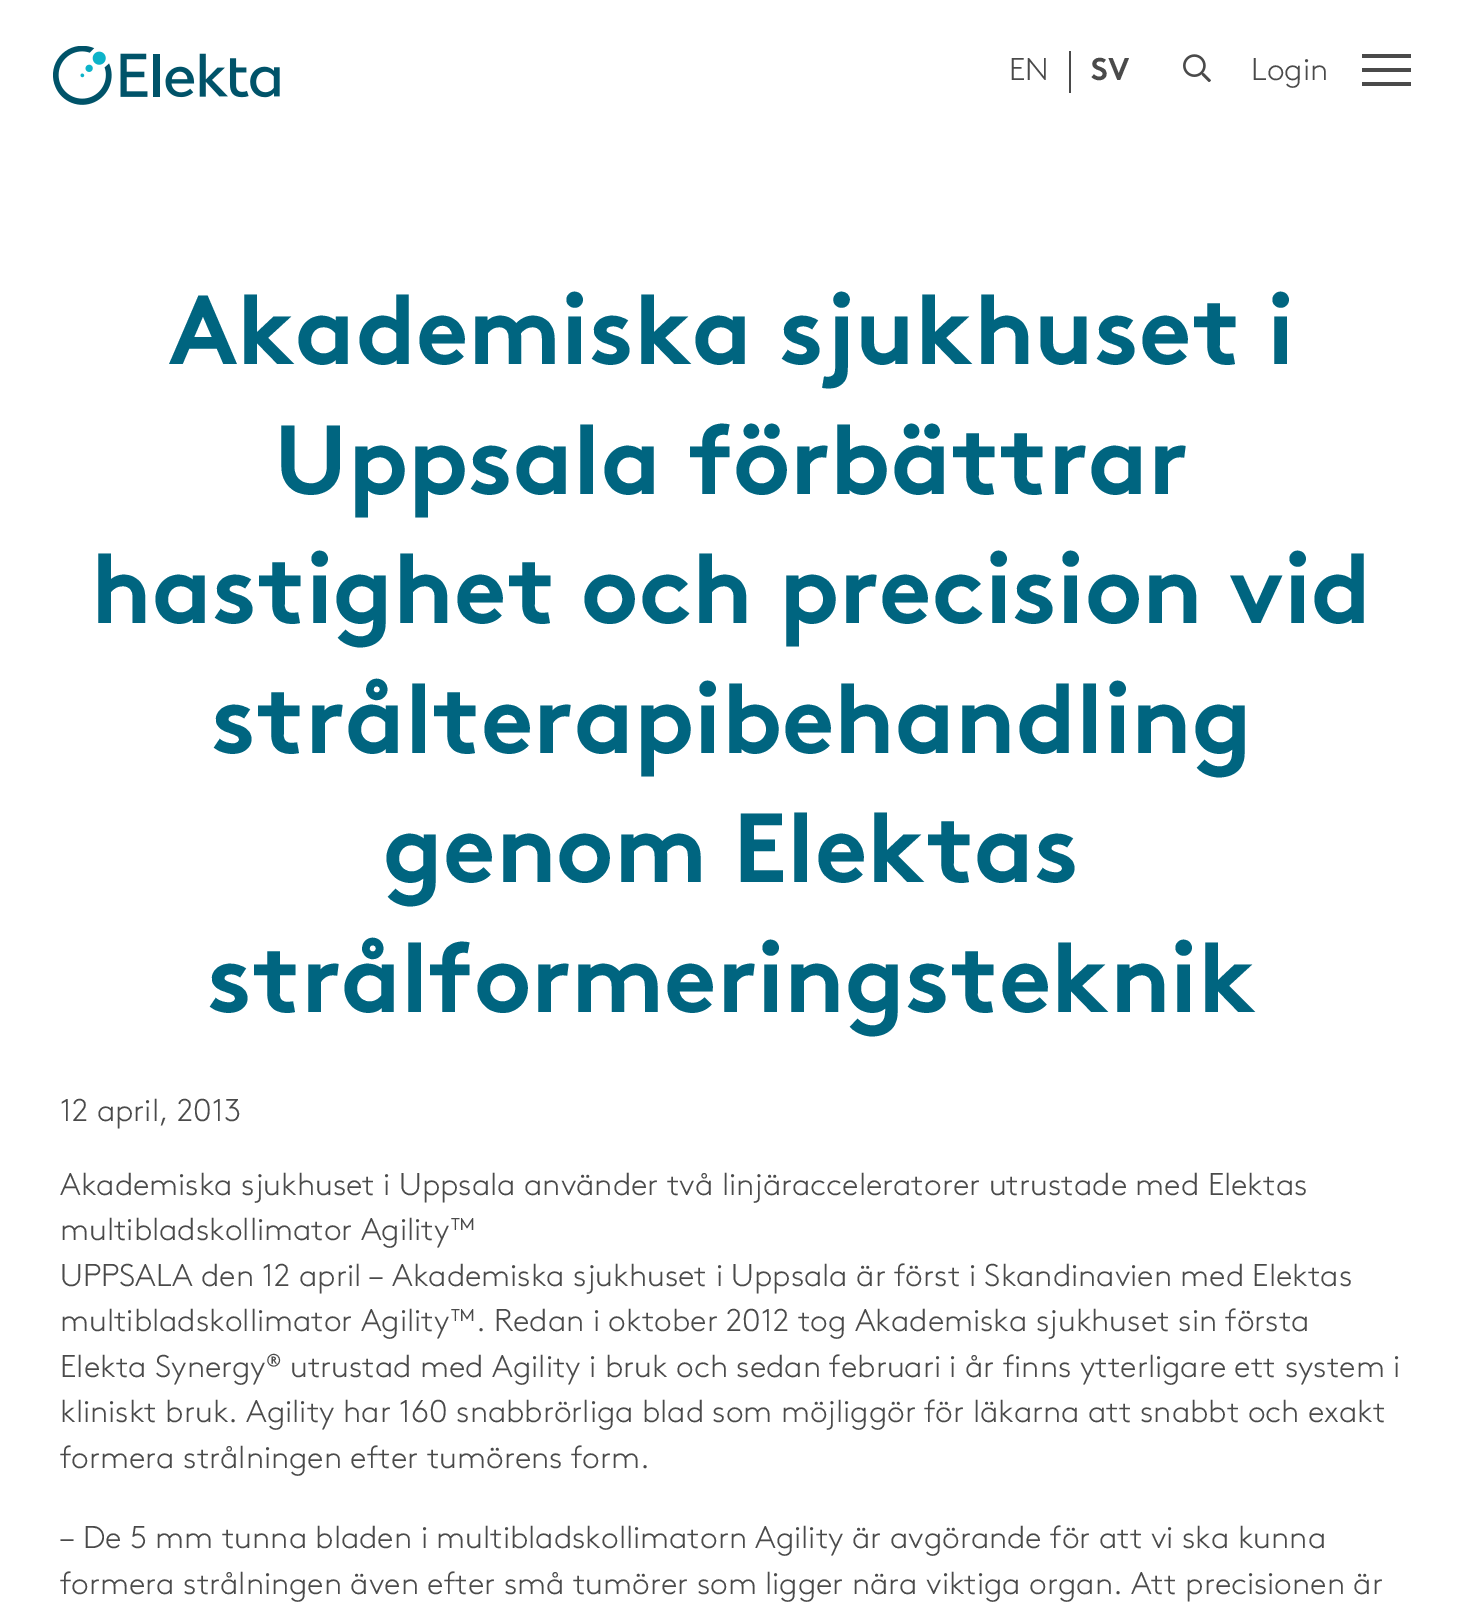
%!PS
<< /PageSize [1462 1616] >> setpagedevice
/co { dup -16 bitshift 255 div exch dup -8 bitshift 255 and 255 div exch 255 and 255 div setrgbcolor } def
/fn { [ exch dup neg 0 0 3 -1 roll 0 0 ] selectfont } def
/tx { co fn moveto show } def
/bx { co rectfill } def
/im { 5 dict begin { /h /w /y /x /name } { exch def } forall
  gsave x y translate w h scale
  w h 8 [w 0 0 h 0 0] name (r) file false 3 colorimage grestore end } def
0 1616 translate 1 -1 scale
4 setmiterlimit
0 0 1462 1616 16#FFFFFF bx
(media/1.raw) 53 46 227 59 im
1069 51 2 42 16#4A4A4A bx
(media/2.raw) 1183 54 28 28 im
1362 54 49 4 16#4A4A4A bx
1362 68 49 4 16#4A4A4A bx
1362 82 49 4 16#4A4A4A bx
(EN) 1009 80 /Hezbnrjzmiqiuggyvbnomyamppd-Light 31.5 16#4A4A4A tx
(SV) 1091 80 /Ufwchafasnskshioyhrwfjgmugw-Bold 31.5 16#4A4A4A tx
(Login) 1251 80 /Hezbnrjzmiqiuggyvbnomyamppd-Light 31.5 16#4A4A4A tx
(Akademiska sjukhuset i) 169 364 /Ufwchafasnskshioyhrwfjgmugw-Bold 98 16#006580 tx
(Uppsala förbättrar) 274 494 /Ufwchafasnskshioyhrwfjgmugw-Bold 98 16#006580 tx
(hastighet och precision vid) 91 623 /Ufwchafasnskshioyhrwfjgmugw-Bold 98 16#006580 tx
(strålterapibehandling) 211 753 /Ufwchafasnskshioyhrwfjgmugw-Bold 98 16#006580 tx
(genom Elektas) 383 882 /Ufwchafasnskshioyhrwfjgmugw-Bold 98 16#006580 tx
(strålformeringsteknik) 207 1012 /Ufwchafasnskshioyhrwfjgmugw-Bold 98 16#006580 tx
(12 april, 2013) 60 1121 /Hezbnrjzmiqiuggyvbnomyamppd-Light 31.5 16#4A4A4A tx
(Akademiska sjukhuset i Uppsala använder två linjäracceleratorer utrustade med Elektas) 60 1195 /Hezbnrjzmiqiuggyvbnomyamppd-Light 31.5 16#4A4A4A tx
(multibladskollimator Agility™) 60 1240 /Hezbnrjzmiqiuggyvbnomyamppd-Light 31.5 16#4A4A4A tx
(UPPSALA den 12 april – Akademiska sjukhuset i Uppsala är först i Skandinavien med Elektas) 60 1286 /Hezbnrjzmiqiuggyvbnomyamppd-Light 31.5 16#4A4A4A tx
(multibladskollimator Agility™. Redan i oktober 2012 tog Akademiska sjukhuset sin första) 60 1331 /Hezbnrjzmiqiuggyvbnomyamppd-Light 31.5 16#4A4A4A tx
(Elekta Synergy® utrustad med Agility i bruk och sedan februari i år finns ytterligare ett system i) 60 1377 /Hezbnrjzmiqiuggyvbnomyamppd-Light 31.5 16#4A4A4A tx
(kliniskt bruk. Agility har 160 snabbrörliga blad som möjliggör för läkarna att snabbt och exakt) 60 1422 /Hezbnrjzmiqiuggyvbnomyamppd-Light 31.5 16#4A4A4A tx
(formera strålningen efter tumörens form.) 60 1468 /Hezbnrjzmiqiuggyvbnomyamppd-Light 31.5 16#4A4A4A tx
(– De 5 mm tunna bladen i multibladskollimatorn Agility är avgörande för att vi ska kunna) 60 1548 /Hezbnrjzmiqiuggyvbnomyamppd-Light 31.5 16#4A4A4A tx
(formera strålningen även efter små tumörer som ligger nära viktiga organ. Att precisionen är) 60 1594 /Hezbnrjzmiqiuggyvbnomyamppd-Light 31.5 16#4A4A4A tx
showpage
